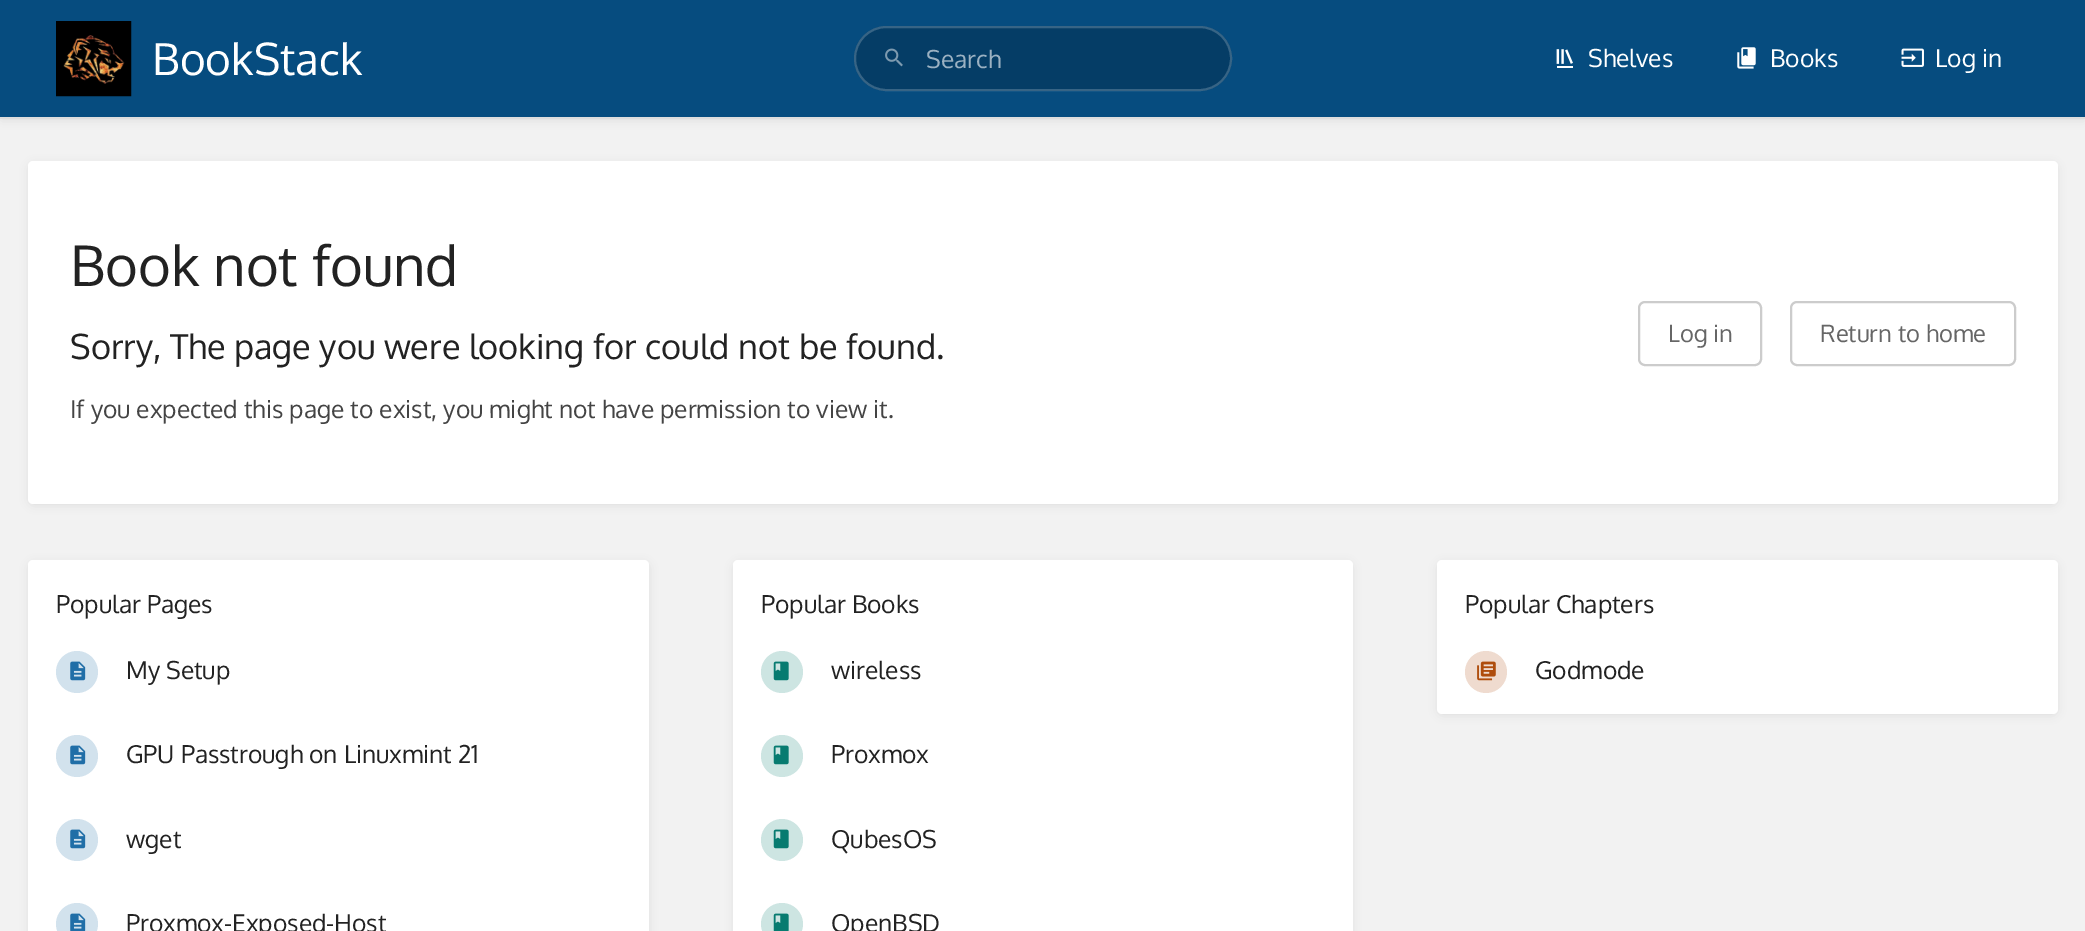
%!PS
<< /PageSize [2085 931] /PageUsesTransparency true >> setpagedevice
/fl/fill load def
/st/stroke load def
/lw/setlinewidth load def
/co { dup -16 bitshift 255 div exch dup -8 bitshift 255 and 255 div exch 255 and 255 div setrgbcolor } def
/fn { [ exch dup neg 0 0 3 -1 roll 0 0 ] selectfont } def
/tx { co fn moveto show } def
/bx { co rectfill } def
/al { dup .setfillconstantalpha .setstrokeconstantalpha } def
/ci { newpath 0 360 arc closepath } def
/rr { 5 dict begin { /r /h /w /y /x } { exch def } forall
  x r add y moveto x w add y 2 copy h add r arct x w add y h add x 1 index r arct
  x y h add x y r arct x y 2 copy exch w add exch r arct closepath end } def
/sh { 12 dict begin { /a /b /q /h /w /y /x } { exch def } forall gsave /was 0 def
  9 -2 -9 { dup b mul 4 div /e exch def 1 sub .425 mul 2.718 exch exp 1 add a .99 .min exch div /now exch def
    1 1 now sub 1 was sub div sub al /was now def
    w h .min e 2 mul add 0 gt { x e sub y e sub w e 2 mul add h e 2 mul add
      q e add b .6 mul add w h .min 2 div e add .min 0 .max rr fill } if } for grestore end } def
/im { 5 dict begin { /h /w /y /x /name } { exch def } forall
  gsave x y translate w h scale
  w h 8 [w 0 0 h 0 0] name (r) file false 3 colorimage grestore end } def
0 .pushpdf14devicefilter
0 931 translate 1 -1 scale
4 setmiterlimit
0 0 2085 931 16#F2F2F2 bx
16#000000 co
2 4 2082 115 0 5 .1 sh
0 0 2085 117 16#064C7F bx
0 117 2085 2 16#DDDDDD bx
(media/1.raw) 56 21 76 76 im
16#053D66 co
854 26 378 65 32.5 rr fl
0.2 al
16#FFFFFF co
2 lw
855 27 376 63 31.5 rr st
1 al
(media/2.raw) 885 48 18 19 im
(media/3.raw) 1556 49 17 19 im
(media/4.raw) 1737 47 19 22 im
(media/5.raw) 1901 48 23 19 im
16#000000 co
30 165 2026 339 4 5 .1 sh
16#FFFFFF co
28 161 2030 343 5 rr fl
16#CCCCCC co
1639 302 122 63 6 rr st
1791 302 224 63 6 rr st
16#000000 co
30 564 618 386 4 5 .1 sh
16#FFFFFF co
28 560 621 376 5 rr fl
(media/6.raw) 70 661 16 20 im
0.2 al
16#206EA7 co
77 672 21 ci fl
1 al
(media/6.raw) 70 745 16 20 im
0.2 al
77 756 21 ci fl
1 al
(media/6.raw) 70 829 16 20 im
0.2 al
77 840 21 ci fl
1 al
(media/7.raw) 70 913 16 18 im
0.2 al
77 924 21 ci fl
1 al
16#000000 co
735 564 616 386 4 5 .1 sh
16#FFFFFF co
733 560 620 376 5 rr fl
(media/8.raw) 773 661 16 20 im
0.2 al
16#077B70 co
782 672 21 ci fl
1 al
(media/8.raw) 773 745 16 20 im
0.2 al
782 756 21 ci fl
1 al
(media/8.raw) 773 829 16 20 im
0.2 al
782 840 21 ci fl
1 al
(media/9.raw) 773 913 16 18 im
0.2 al
782 924 21 ci fl
1 al
16#000000 co
1439 564 617 150 4 5 .1 sh
16#FFFFFF co
1437 560 621 154 5 rr fl
(media/10.raw) 1477 661 19 20 im
0.2 al
16#AF4D0D co
1486 672 21 ci fl
1 al
(BookStack) 152 75 /Oxygen-Regular 44 16#FFFFFF tx
(Search) 926 68 /Oxygen-Regular 24.5 16#9BB1C2 tx
(Shelves) 1588 67 /Oxygen-Regular 24.5 16#FFFFFF tx
(Books) 1770 67 /Oxygen-Regular 24.5 16#FFFFFF tx
(Log in) 1935 67 /Oxygen-Regular 24.5 16#FFFFFF tx
(Book not found) 70 286 /Oxygen-Regular 56 16#222222 tx
(Sorry, The page you were looking for could not be found.) 70 359 /Oxygen-Regular 34.3 16#222222 tx
(If you expected this page to exist, you might not have permission to view it.) 70 418 /Oxygen-Regular 24.5 16#444444 tx
(Log in) 1668 342 /Oxygen-Regular 23.75 16#666666 tx
(Return to home) 1820 342 /Oxygen-Regular 23.75 16#666666 tx
(Popular Pages) 56 613 /Oxygen-Regular 24.5 16#222222 tx
(My Setup) 126 679 /Oxygen-Regular 24.5 16#222222 tx
(GPU Passtrough on Linuxmint 21) 126 763 /Oxygen-Regular 24.5 16#222222 tx
(wget) 126 848 /Oxygen-Regular 24.5 16#222222 tx
(Proxmox-Exposed-Host) 126 932 /Oxygen-Regular 24.5 16#222222 tx
(Popular Books) 761 613 /Oxygen-Regular 24.5 16#222222 tx
(wireless) 831 679 /Oxygen-Regular 24.5 16#222222 tx
(Proxmox) 831 763 /Oxygen-Regular 24.5 16#222222 tx
(QubesOS) 831 848 /Oxygen-Regular 24.5 16#222222 tx
(OpenBSD) 831 932 /Oxygen-Regular 24.5 16#222222 tx
(Popular Chapters) 1465 613 /Oxygen-Regular 24.5 16#222222 tx
(Godmode) 1535 679 /Oxygen-Regular 24.5 16#222222 tx
.poppdf14devicefilter showpage
